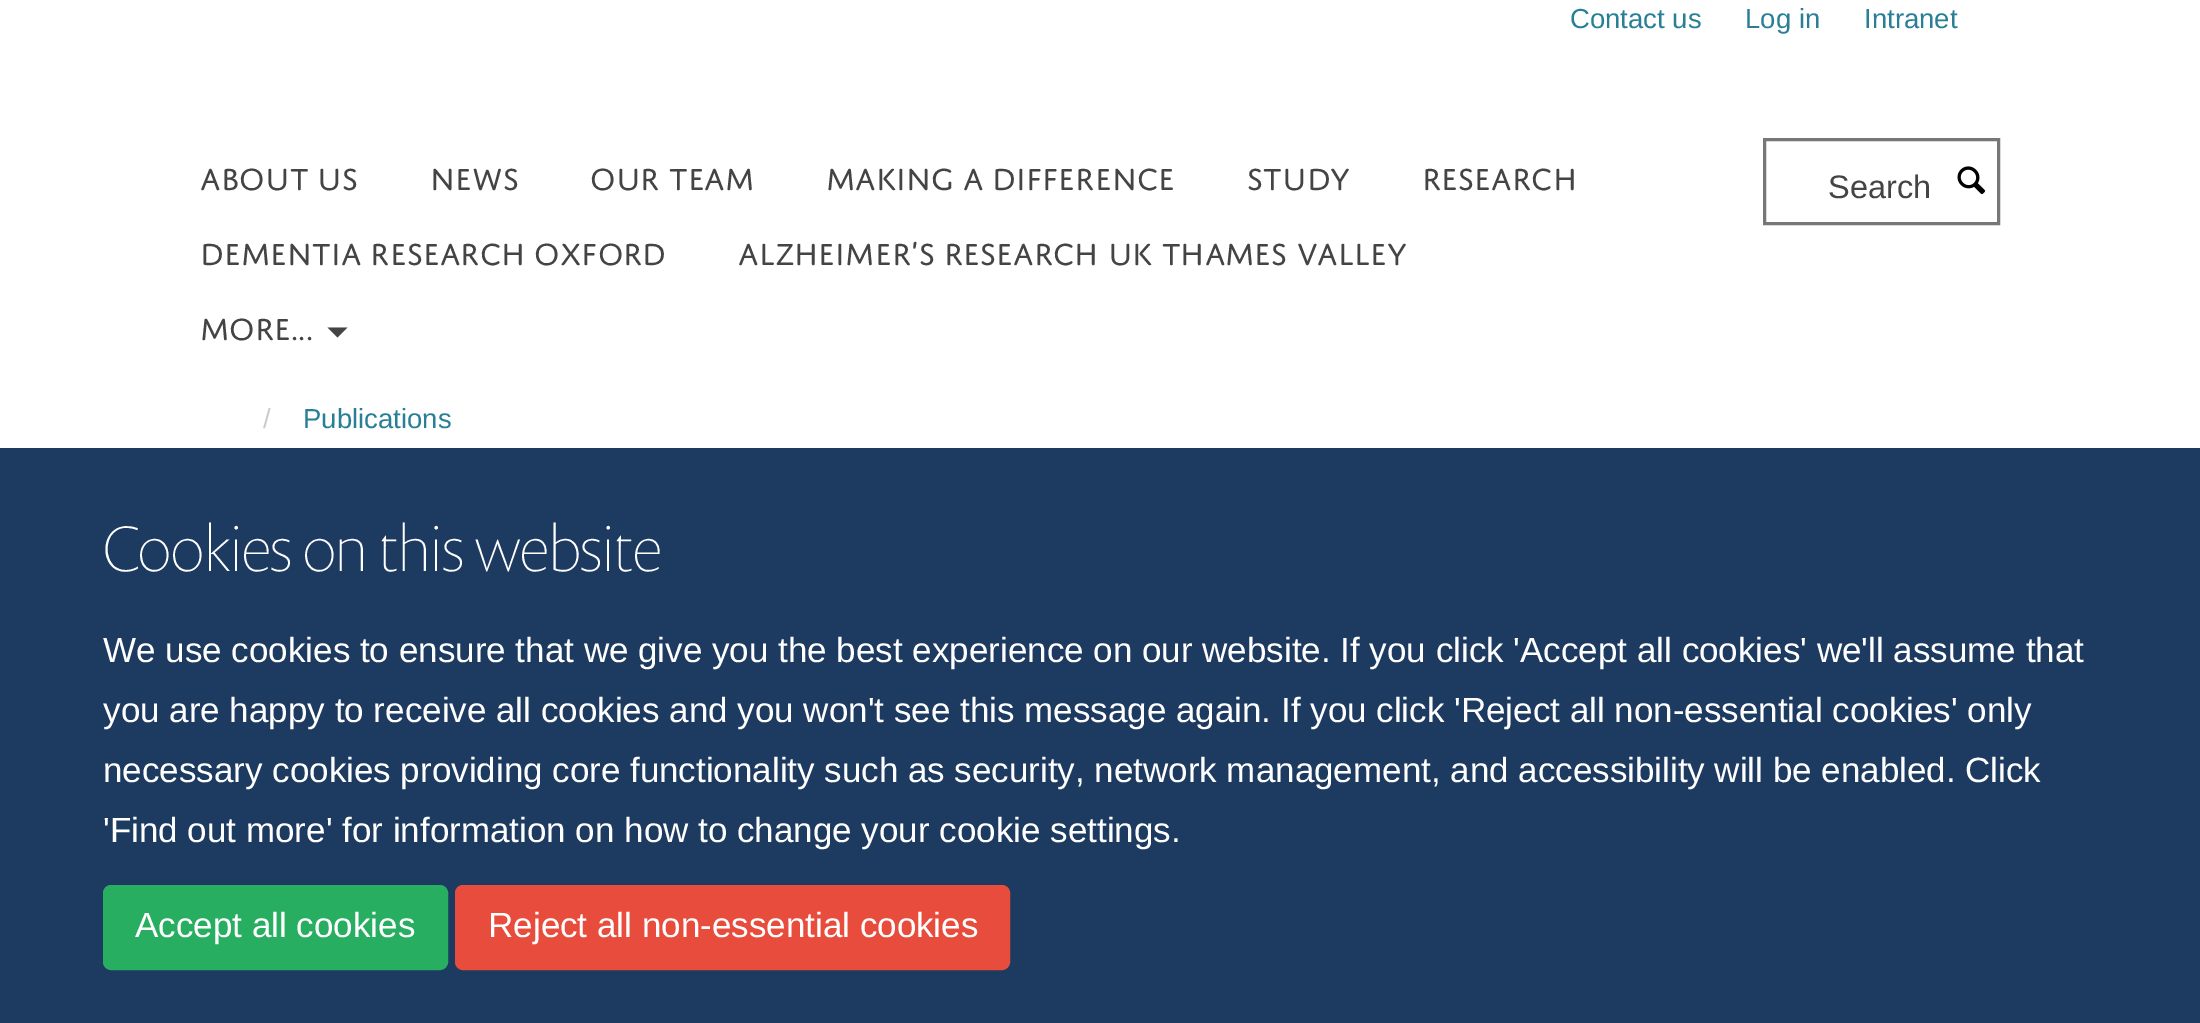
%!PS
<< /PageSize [2200 1023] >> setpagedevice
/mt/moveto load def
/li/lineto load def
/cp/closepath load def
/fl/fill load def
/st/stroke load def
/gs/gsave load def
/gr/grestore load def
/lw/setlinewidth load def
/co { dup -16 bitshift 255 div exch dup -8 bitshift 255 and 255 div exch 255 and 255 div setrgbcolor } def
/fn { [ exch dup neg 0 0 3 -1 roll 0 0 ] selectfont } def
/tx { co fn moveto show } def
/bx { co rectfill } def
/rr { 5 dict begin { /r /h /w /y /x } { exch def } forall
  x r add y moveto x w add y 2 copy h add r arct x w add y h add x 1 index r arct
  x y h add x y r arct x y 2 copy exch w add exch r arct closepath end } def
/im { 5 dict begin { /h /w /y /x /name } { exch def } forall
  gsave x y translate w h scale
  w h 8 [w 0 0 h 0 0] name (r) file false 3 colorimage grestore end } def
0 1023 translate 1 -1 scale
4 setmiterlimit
0 0 2200 1023 16#FFFFFF bx
16#444444 co
327.5 327.5 mt 347.5 327.5 li 337.5 337.5 li cp fl
16#777777 co
3 lw
1764.5 139.5 234 84 rectstroke
(media/1.raw) 1957 166 29 29 im
0 448 2200 575 16#1D3A61 bx
16#27AE60 co
104.5 886.5 342 82 6.5 rr gs fl gr
st
16#E74C3C co
456.5 886.5 552 82 6.5 rr gs fl gr
st
(Contact us) 1570 28 /LiberationSans-Regular 27.5 16#298096 tx
(Log in) 1745 28 /LiberationSans-Regular 27.5 16#298096 tx
(Intranet) 1864 28 /LiberationSans-Regular 27.5 16#298096 tx
(ABOUT US) 200 190 /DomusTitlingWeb-Regular 32.5 16#444444 tx
(NEWS) 430 190 /DomusTitlingWeb-Regular 32.5 16#444444 tx
(OUR TEAM) 590 190 /DomusTitlingWeb-Regular 32.5 16#444444 tx
(MAKING A DIFFERENCE) 826 190 /DomusTitlingWeb-Regular 32.5 16#444444 tx
(STUDY) 1247 190 /DomusTitlingWeb-Regular 32.5 16#444444 tx
(RESEARCH) 1422 190 /DomusTitlingWeb-Regular 32.5 16#444444 tx
(DEMENTIA RESEARCH OXFORD) 200 265 /DomusTitlingWeb-Regular 32.5 16#444444 tx
(ALZHEIMER’S RESEARCH UK THAMES VALLEY) 738 265 /DomusTitlingWeb-Regular 32.5 16#444444 tx
(MORE...) 200 340 /DomusTitlingWeb-Regular 32.5 16#444444 tx
(Search) 1828 198 /LiberationSans-Regular 32.5 16#444444 tx
(/) 263 428 /LiberationSans-Regular 27.5 16#CCCCCC tx
(Publications) 303 428 /LiberationSans-Regular 27.5 16#298096 tx
(Cookies on this website) 103 571 /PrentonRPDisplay-Thin 65 16#FFFFFF tx
(We use cookies to ensure that we give you the best experience on our website. If you click 'Accept all cookies' we'll assume that) 103 662 /LiberationSans-Regular 35 16#FFFFFF tx
(you are happy to receive all cookies and you won't see this message again. If you click 'Reject all non-essential cookies' only) 103 722 /LiberationSans-Regular 35 16#FFFFFF tx
103 782 mt -.1 0 32 (necessary cookies providing core functionality such as security, network management, and accessibility will be enabled. Click) widthshow
('Find out more' for information on how to change your cookie settings.) 103 842 /LiberationSans-Regular 35 16#FFFFFF tx
(Accept all cookies) 135 937 /LiberationSans-Regular 35 16#FFFFFF tx
(Reject all non-essential cookies) 488 937 /LiberationSans-Regular 35 16#FFFFFF tx
showpage
